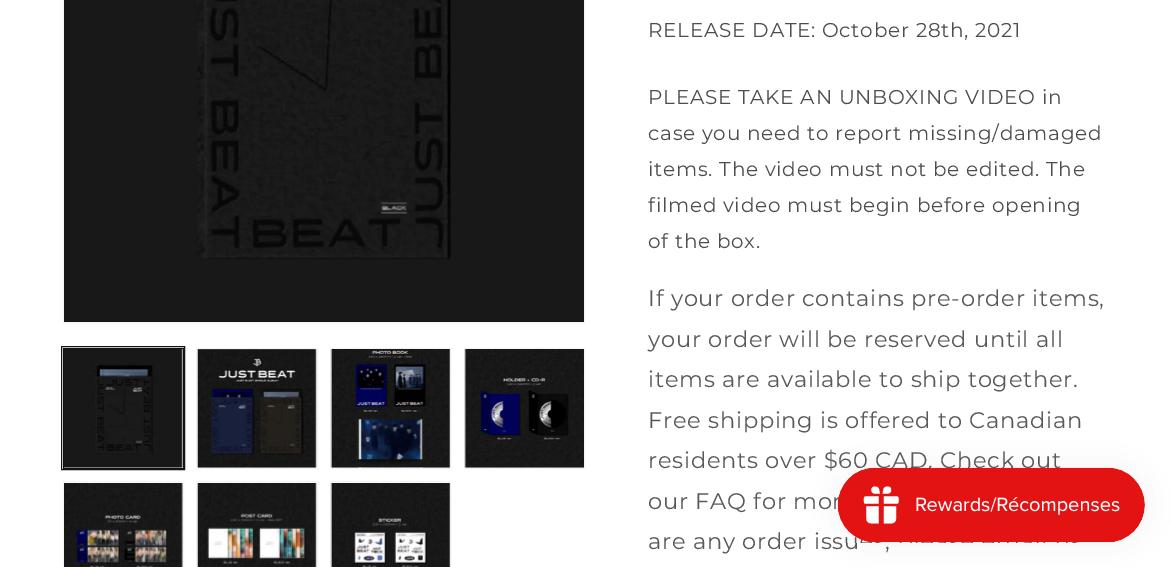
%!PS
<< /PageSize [1170 567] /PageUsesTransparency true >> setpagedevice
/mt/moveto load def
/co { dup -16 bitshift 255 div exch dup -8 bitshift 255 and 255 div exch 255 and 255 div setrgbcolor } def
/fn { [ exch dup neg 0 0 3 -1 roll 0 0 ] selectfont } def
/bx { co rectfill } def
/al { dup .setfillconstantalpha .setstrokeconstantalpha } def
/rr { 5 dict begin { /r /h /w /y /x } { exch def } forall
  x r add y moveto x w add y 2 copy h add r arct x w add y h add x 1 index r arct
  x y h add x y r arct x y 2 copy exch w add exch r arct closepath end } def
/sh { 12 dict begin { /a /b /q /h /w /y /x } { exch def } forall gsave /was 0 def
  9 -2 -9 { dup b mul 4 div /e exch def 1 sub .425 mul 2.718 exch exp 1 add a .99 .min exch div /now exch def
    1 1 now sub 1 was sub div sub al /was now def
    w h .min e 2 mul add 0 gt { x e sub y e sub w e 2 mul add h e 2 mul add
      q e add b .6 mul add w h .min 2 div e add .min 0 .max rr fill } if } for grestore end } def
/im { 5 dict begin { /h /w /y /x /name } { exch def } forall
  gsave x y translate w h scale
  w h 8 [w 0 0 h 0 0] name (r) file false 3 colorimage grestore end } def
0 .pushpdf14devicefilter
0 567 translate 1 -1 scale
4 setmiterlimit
0 0 1170 567 16#FFFFFF bx
16#F3F3F3 co
63.5 -.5 521 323 rectstroke
(media/1.raw) 64 0 520 322 im
16#121212 co
61.5 346.5 123 123 rectstroke
63.5 348.5 120 120 rectstroke
(media/2.raw) 64 349 119 119 im
16#F3F3F3 co
196.5 348.5 121 120 rectstroke
(media/3.raw) 197 349 120 119 im
330.5 348.5 120 120 rectstroke
(media/4.raw) 330 349 121 119 im
464.5 348.5 120 120 rectstroke
(media/5.raw) 464 349 120 119 im
63.5 481.5 120 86 rectstroke
(media/6.raw) 64 483 119 84 im
196.5 481.5 121 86 rectstroke
(media/7.raw) 197 483 120 84 im
330.5 481.5 120 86 rectstroke
(media/8.raw) 330 483 121 84 im
16#000000 co
838 468 307 75 37.5 15.5 .05 sh
/Montserrat-Regular 20 fn
16#4D4D4D co
648 37 mt .75 0 (RELEASE DATE: October 28th, 2021) ashow
648 104 mt .75 0 (PLEASE TAKE AN UNBOXING VIDEO in) ashow
648 140 mt .75 0 (case you need to report missing/damaged) ashow
648 176 mt .75 0 (items. The video must not be edited. The) ashow
648 212 mt .75 0 (filmed video must begin before opening) ashow
648 248 mt .75 0 (of the box.) ashow
/Montserrat-Regular 22.5 fn
16#595959 co
648 306 mt .75 0 (If your order contains pre-order items,) ashow
648 347 mt .75 0 (your order will be reserved until all) ashow
648 387 mt .75 0 (items are available to ship together.) ashow
648 428 mt .75 0 (Free shipping is offered to Canadian) ashow
648 468 mt .75 0 (residents over $60 CAD. Check out) ashow
648 509 mt .75 0 (our FAQ for mor) ashow
648 549 mt .75 0 (are any order issu) ashow
885 549 mt .75 0 (,) ashow
(media/9.raw) 837 467 308 76 im
.poppdf14devicefilter showpage
